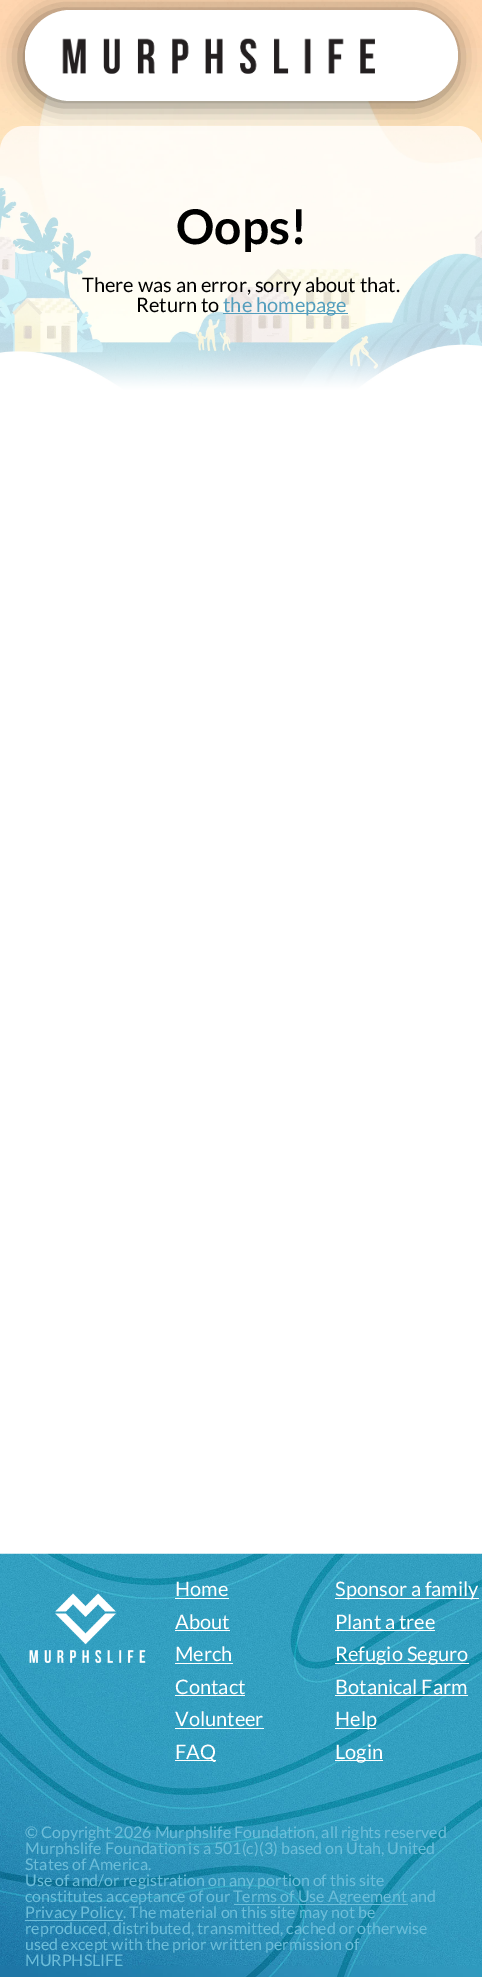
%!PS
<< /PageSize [482 1977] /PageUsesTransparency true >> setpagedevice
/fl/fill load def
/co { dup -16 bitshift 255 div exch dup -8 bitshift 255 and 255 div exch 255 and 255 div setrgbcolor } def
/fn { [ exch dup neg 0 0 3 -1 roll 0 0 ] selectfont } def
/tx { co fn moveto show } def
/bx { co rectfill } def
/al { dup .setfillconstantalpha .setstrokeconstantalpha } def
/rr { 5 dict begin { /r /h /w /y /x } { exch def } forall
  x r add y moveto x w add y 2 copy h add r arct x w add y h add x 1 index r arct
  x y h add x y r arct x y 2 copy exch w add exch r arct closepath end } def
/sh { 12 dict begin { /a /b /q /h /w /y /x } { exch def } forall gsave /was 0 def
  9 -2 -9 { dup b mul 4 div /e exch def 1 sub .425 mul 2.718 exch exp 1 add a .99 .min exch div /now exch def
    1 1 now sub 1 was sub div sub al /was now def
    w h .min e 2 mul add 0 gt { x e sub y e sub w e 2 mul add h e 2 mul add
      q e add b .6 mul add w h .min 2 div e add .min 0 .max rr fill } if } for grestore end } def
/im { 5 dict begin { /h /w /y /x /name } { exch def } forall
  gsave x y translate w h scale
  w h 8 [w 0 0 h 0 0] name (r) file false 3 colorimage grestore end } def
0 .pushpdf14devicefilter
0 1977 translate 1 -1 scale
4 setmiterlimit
0 0 482 1977 16#FFFFFF bx
(media/1.raw) 0 0 482 390 im
16#000000 co
20 10 438 96 48 11 .44 sh
16#FFFFFF co
25 10 433 91 45.5 rr fl
(media/2.raw) 62 38 313 36 im
0.7 al
0 126 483 1378 25 rr fl
1 al
223 313 125 1 16#549EBD bx
(media/3.raw) 0 1553 482 424 im
(media/4.raw) 29 1593 117 70 im
175 1598 54 1 16#FFFFFF bx
175 1630 55 1 16#FFFFFF bx
175 1663 58 1 16#FFFFFF bx
175 1695 70 1 16#FFFFFF bx
175 1728 89 1 16#FFFFFF bx
175 1760 41 1 16#FFFFFF bx
335 1598 144 1 16#FFFFFF bx
335 1630 100 1 16#FFFFFF bx
335 1663 134 1 16#FFFFFF bx
335 1695 133 1 16#FFFFFF bx
335 1728 41 1 16#FFFFFF bx
335 1760 48 1 16#FFFFFF bx
234 1904 174 1 16#6DBEDA bx
25 1920 98 1 16#6DBEDA bx
(Oops!) 176 244 /Lato-Bold 48 16#000000 tx
(There was an error, sorry about that.) 82 292 /Lato-Regular 20 16#000000 tx
(Return to) 136 312 /Lato-Regular 20 16#000000 tx
(the homepage) 223 312 /Lato-Regular 20 16#549EBD tx
(Home) 175 1596 /Lato-Regular 20 16#FFFFFF tx
(About) 175 1629 /Lato-Regular 20 16#FFFFFF tx
(Merch) 175 1661 /Lato-Regular 20 16#FFFFFF tx
(Contact) 175 1694 /Lato-Regular 20 16#FFFFFF tx
(Volunteer) 175 1726 /Lato-Regular 20 16#FFFFFF tx
(FAQ) 175 1759 /Lato-Regular 20 16#FFFFFF tx
(Sponsor a family) 335 1596 /Lato-Regular 20 16#FFFFFF tx
(Plant a tree) 335 1629 /Lato-Regular 20 16#FFFFFF tx
(Refugio Seguro) 335 1661 /Lato-Regular 20 16#FFFFFF tx
(Botanical Farm) 335 1694 /Lato-Regular 20 16#FFFFFF tx
(Help) 335 1726 /Lato-Regular 20 16#FFFFFF tx
(Login) 335 1759 /Lato-Regular 20 16#FFFFFF tx
(© Copyright 2026 Murphslife Foundation, all rights reserved) 25 1838 /Lato-Regular 16 16#6DBEDA tx
(Murphslife Foundation is a 501\(c\)\(3\) based on Utah, United) 25 1854 /Lato-Regular 16 16#6DBEDA tx
(States of America.) 25 1870 /Lato-Regular 16 16#6DBEDA tx
(Use of and/or registration on any portion of this site) 25 1886 /Lato-Regular 16 16#6DBEDA tx
(constitutes acceptance of our) 25 1902 /Lato-Regular 16 16#6DBEDA tx
(Terms of Use Agreement and) 233 1902 /Lato-Regular 16 16#6DBEDA tx
(Privacy Policy. The material on this site may not be) 25 1918 /Lato-Regular 16 16#6DBEDA tx
(reproduced, distributed, transmitted, cached or otherwise) 25 1934 /Lato-Regular 16 16#6DBEDA tx
(used except with the prior written permission of) 25 1950 /Lato-Regular 16 16#6DBEDA tx
(MURPHSLIFE) 25 1966 /Lato-Regular 16 16#6DBEDA tx
.poppdf14devicefilter showpage
